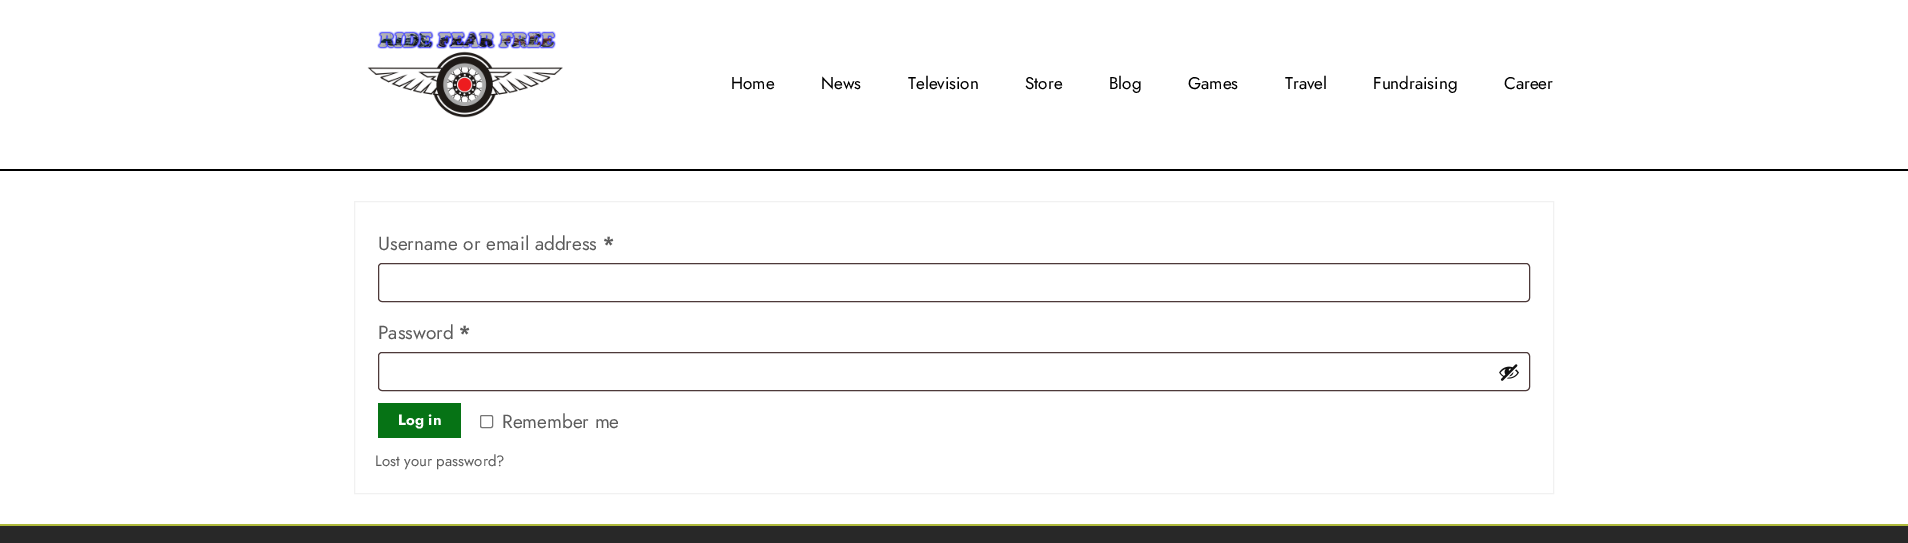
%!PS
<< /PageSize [1908 543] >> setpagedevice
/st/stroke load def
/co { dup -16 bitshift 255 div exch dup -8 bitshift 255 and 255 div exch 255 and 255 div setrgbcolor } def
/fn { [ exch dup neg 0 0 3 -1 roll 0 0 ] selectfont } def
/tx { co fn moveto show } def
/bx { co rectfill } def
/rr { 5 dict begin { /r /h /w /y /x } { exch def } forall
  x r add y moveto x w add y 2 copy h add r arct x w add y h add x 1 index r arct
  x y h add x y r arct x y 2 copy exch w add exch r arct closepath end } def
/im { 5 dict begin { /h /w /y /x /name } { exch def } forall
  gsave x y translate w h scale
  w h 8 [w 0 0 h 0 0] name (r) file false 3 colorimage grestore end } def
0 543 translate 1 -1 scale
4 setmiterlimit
0 0 1908 543 16#FFFFFF bx
0 169 1908 2 16#000000 bx
(media/1.raw) 367 31 196 87 im
16#F1F1F1 co
354.5 201.5 1199 292 rectstroke
16#4D3939 co
378.5 263.5 1151 38 3.5 rr st
378.5 352.5 1151 38 3.5 rr st
(media/2.raw) 1499 364 20 17 im
378 403 83 35 16#067315 bx
16#767676 co
480.5 415.5 12 12 1.5 rr st
0 526 1908 17 16#282828 bx
0 524 1908 2 16#AEB93A bx
(Home) 731 89 /Jost-Regular 17 16#000000 tx
(News) 821 89 /Jost-Regular 17 16#000000 tx
(Television) 908 89 /Jost-Regular 17 16#000000 tx
(Store) 1025 89 /Jost-Regular 17 16#000000 tx
(Blog) 1109 89 /Jost-Regular 17 16#000000 tx
(Games) 1188 89 /Jost-Regular 17 16#000000 tx
(Travel) 1285 89 /Jost-Regular 17 16#000000 tx
(Fundraising) 1373 89 /Jost-Regular 17 16#000000 tx
(Career) 1504 89 /Jost-Regular 17 16#000000 tx
(Username or email address) 378 250 /Jost-Regular 19 16#5C5C5C tx
(*) 603 250 /Jost-Bold 19 16#5C5C5C tx
(Password) 378 339 /Jost-Regular 19 16#5C5C5C tx
(*) 459 339 /Jost-Bold 19 16#5C5C5C tx
(Log in) 398 425 /Jost-Bold 15 16#FFFFFF tx
(Remember me) 502 428 /Jost-Regular 19 16#5C5C5C tx
(Lost your password?) 375 466 /Jost-Regular 15 16#5C5C5C tx
showpage
